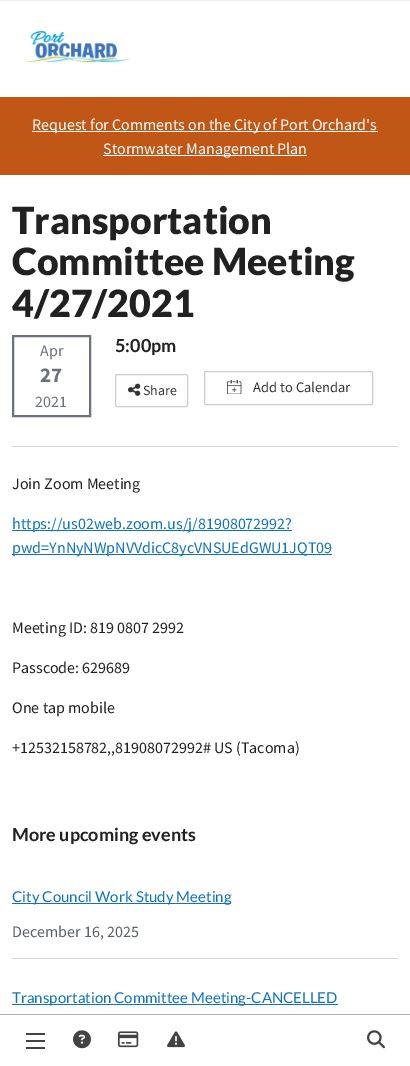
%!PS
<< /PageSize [410 1066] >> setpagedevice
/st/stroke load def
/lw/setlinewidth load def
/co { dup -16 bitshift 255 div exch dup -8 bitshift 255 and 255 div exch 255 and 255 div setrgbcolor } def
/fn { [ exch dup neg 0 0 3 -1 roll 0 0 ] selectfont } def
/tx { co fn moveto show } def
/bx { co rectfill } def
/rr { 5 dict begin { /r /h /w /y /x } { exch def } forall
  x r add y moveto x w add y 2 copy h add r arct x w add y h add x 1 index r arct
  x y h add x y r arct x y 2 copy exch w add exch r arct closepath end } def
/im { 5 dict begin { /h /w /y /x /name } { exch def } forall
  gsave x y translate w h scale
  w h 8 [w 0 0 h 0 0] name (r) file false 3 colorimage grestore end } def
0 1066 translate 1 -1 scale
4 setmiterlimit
0 0 410 1066 16#FFFFFF bx
0 0 410 1 16#EEEEEE bx
0 1014 410 1 16#AEB0B5 bx
(media/1.raw) 73 1030 18 19 im
(media/2.raw) 118 1031 21 17 im
(media/3.raw) 167 1031 18 17 im
(media/4.raw) 367 1030 18 19 im
26 1040 19 2 16#434343 bx
26 1033 19 2 16#434343 bx
26 1047 19 2 16#434343 bx
(media/5.raw) 26 30 104 33 im
0 97 410 78 16#C05717 bx
32 131 346 1 16#FFFFFF bx
103 155 204 1 16#FFFFFF bx
16#6C717F co
2 lw
13 336 77 80 rectstroke
16#CCCCCC co
1 lw
115.5 374.5 72 32 1.5 rr st
(media/6.raw) 128 383 13 13 im
204.5 371.5 168 33 1.5 rr st
(media/7.raw) 227 380 15 14 im
12 446 386 1 16#D6D7D9 bx
12 530 280 1 16#0F74BE bx
12 554 320 1 16#0F74BE bx
12 903 219 1 16#0F74BE bx
12 958 386 1 16#D6D7D9 bx
12 1004 326 1 16#0F74BE bx
(Request for Comments on the City of Port Orchard's) 32 130 /SourceSansPro-Regular 16 16#FFFFFF tx
(Stormwater Management Plan) 103 154 /SourceSansPro-Regular 16 16#FFFFFF tx
(Transportation) 12 234 /Lato-Black 37.5 16#212121 tx
(Committee Meeting) 12 275 /Lato-Black 37.5 16#212121 tx
(4/27/2021) 12 317 /Lato-Black 37.5 16#212121 tx
(Apr) 40 356 /SourceSansPro-Regular 16 16#6C717F tx
(27) 40 382 /SourceSansPro-Bold 21 16#6C717F tx
(2021) 35 407 /SourceSansPro-Regular 16 16#6C717F tx
(5:00pm) 115 352 /Lato-Bold 18 16#212121 tx
(Share) 143 395 /SourceSansPro-Regular 14 16#333333 tx
(Add to Calendar) 253 392 /SourceSansPro-Regular 14.5 16#333333 tx
(Join Zoom Meeting) 12 489 /SourceSansPro-Regular 16 16#212121 tx
(https://us02web.zoom.us/j/81908072992?) 12 529 /SourceSansPro-Regular 16 16#0F74BE tx
(pwd=YnNyNWpNVVdicC8ycVNSUEdGWU1JQT09) 12 553 /SourceSansPro-Regular 16 16#0F74BE tx
(Meeting ID: 819 0807 2992) 12 633 /SourceSansPro-Regular 16 16#212121 tx
(Passcode: 629689) 12 673 /SourceSansPro-Regular 16 16#212121 tx
(One tap mobile) 12 713 /SourceSansPro-Regular 16 16#212121 tx
(+12532158782,,81908072992# US \(Tacoma\)) 12 753 /SourceSansPro-Regular 16 16#212121 tx
(More upcoming events) 12 841 /Lato-Bold 18 16#212121 tx
(City Council Work Study Meeting) 12 902 /Lato-Regular 15 16#0F74BE tx
(December 16, 2025) 12 937 /SourceSansPro-Regular 16 16#5B616B tx
(Transportation Committee Meeting-CANCELLED) 12 1003 /Lato-Regular 15 16#0F74BE tx
showpage
